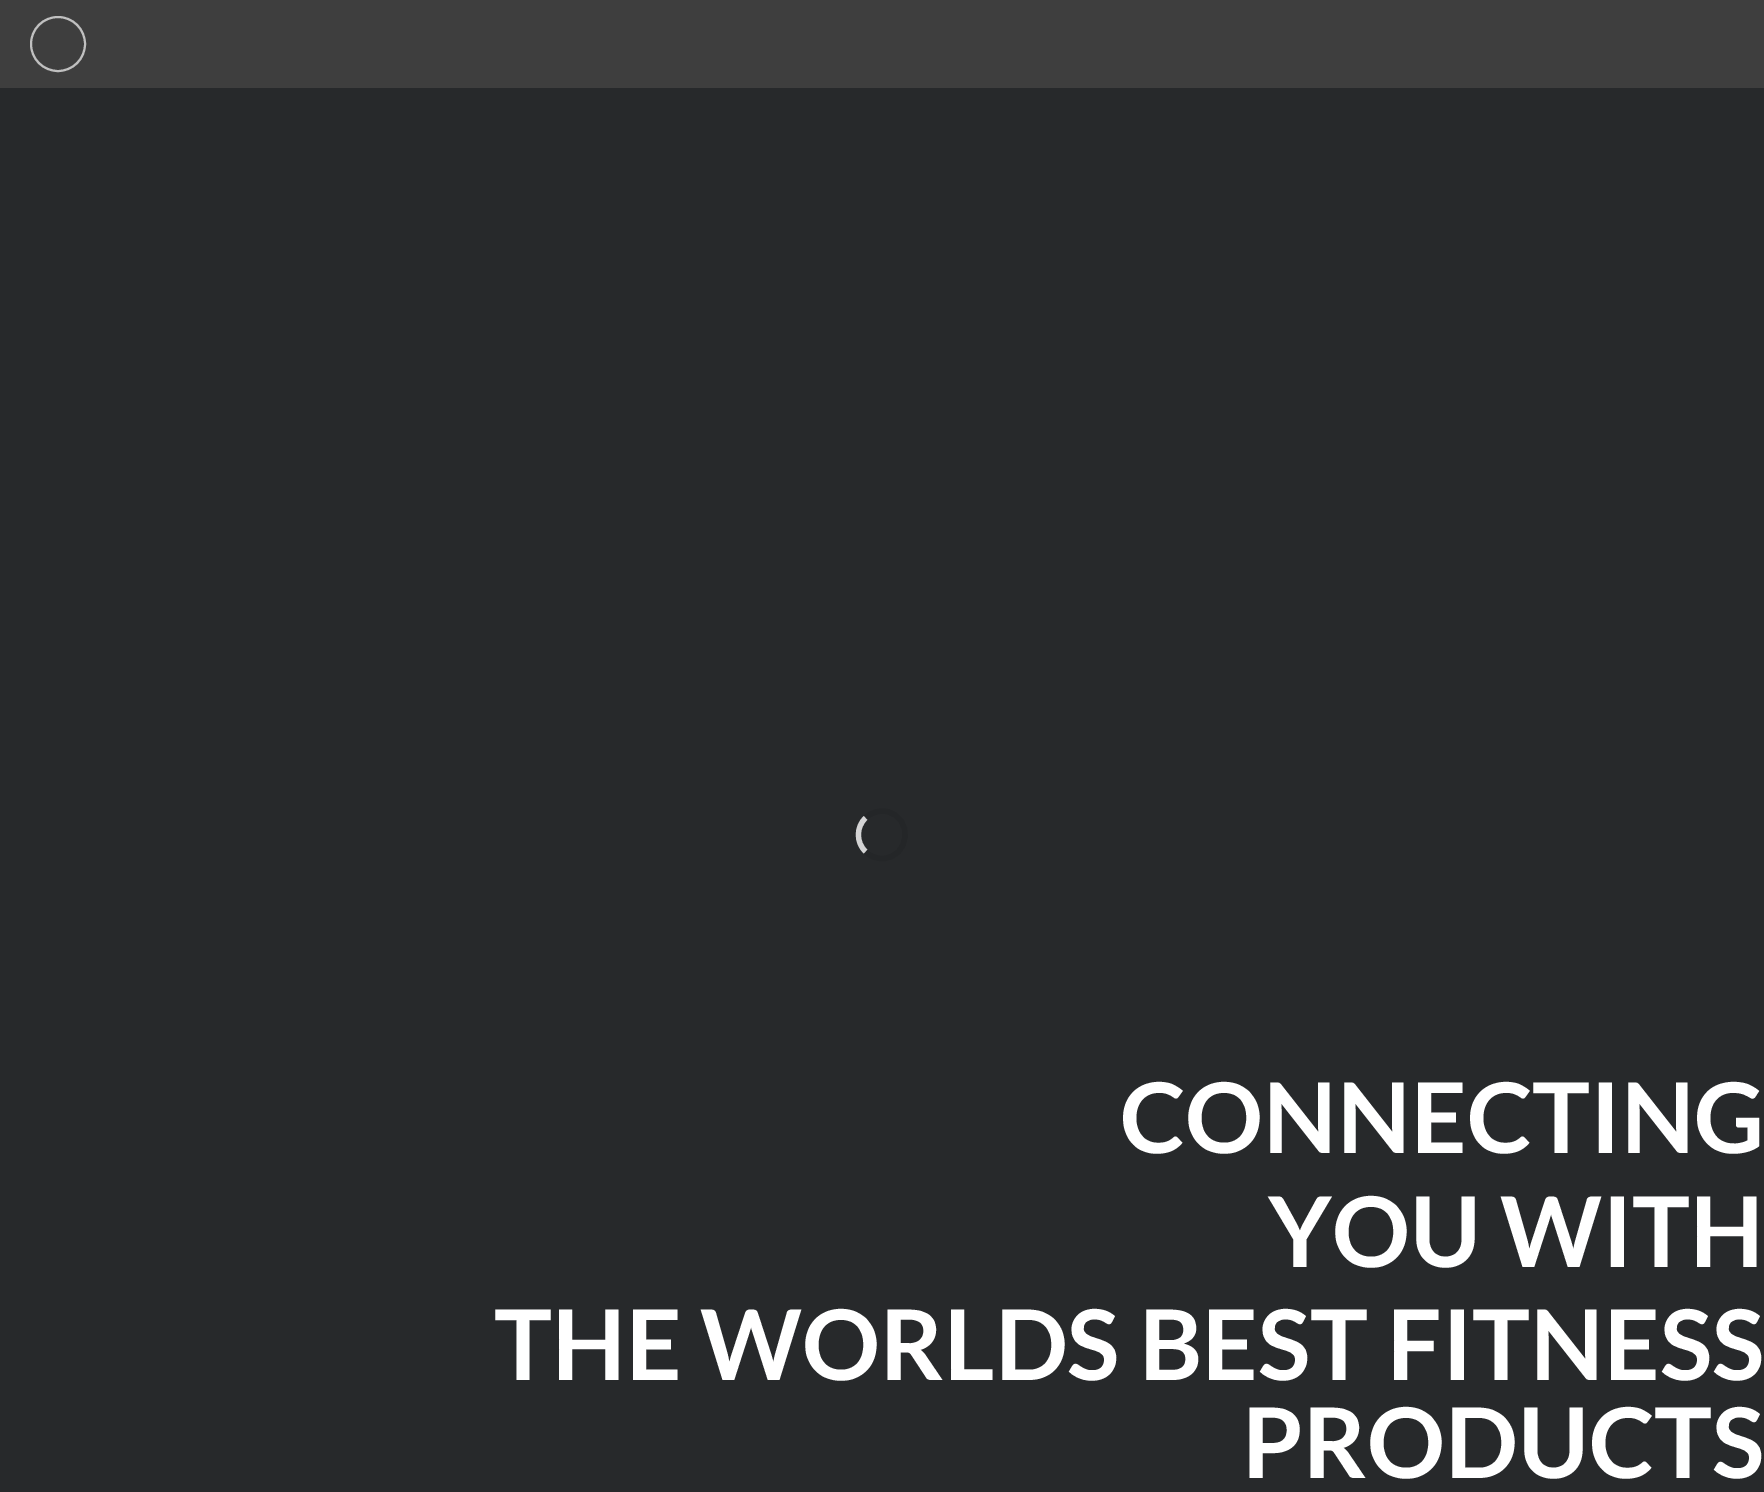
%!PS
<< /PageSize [1764 1492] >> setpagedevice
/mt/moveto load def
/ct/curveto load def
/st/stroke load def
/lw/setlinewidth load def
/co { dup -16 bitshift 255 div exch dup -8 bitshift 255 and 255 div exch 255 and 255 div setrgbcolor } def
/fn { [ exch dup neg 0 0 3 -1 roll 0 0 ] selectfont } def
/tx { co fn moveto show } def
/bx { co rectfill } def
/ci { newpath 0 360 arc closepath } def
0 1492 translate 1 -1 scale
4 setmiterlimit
0 0 1764 1492 16#27292B bx
0 0 1764 88 16#3E3E3E bx
16#C0C0C0 co
2 lw
58 44 27 ci st
16#242628 co
5.2 lw
865.5 818 mt 871 812.5 879 810 886.5 811.5 ct 914 817 910 858.5 882 858.5 ct 876 858.5 869.5 856 865.5 851.5 ct st
16#D4D4D5 co
865.5 851.5 mt 856 842.5 856 827 865.5 818 ct st
(CONNECTING) 1120 1153 /Lato-Bold 97.5 16#FFFFFF tx
(YOU WITH) 1268 1267 /Lato-Bold 97.5 16#FFFFFF tx
(THE WORLDS BEST FITNESS) 494 1380 /Lato-Bold 97.5 16#FFFFFF tx
(PRODUCTS) 1242 1478 /Lato-Bold 97.5 16#FFFFFF tx
showpage
